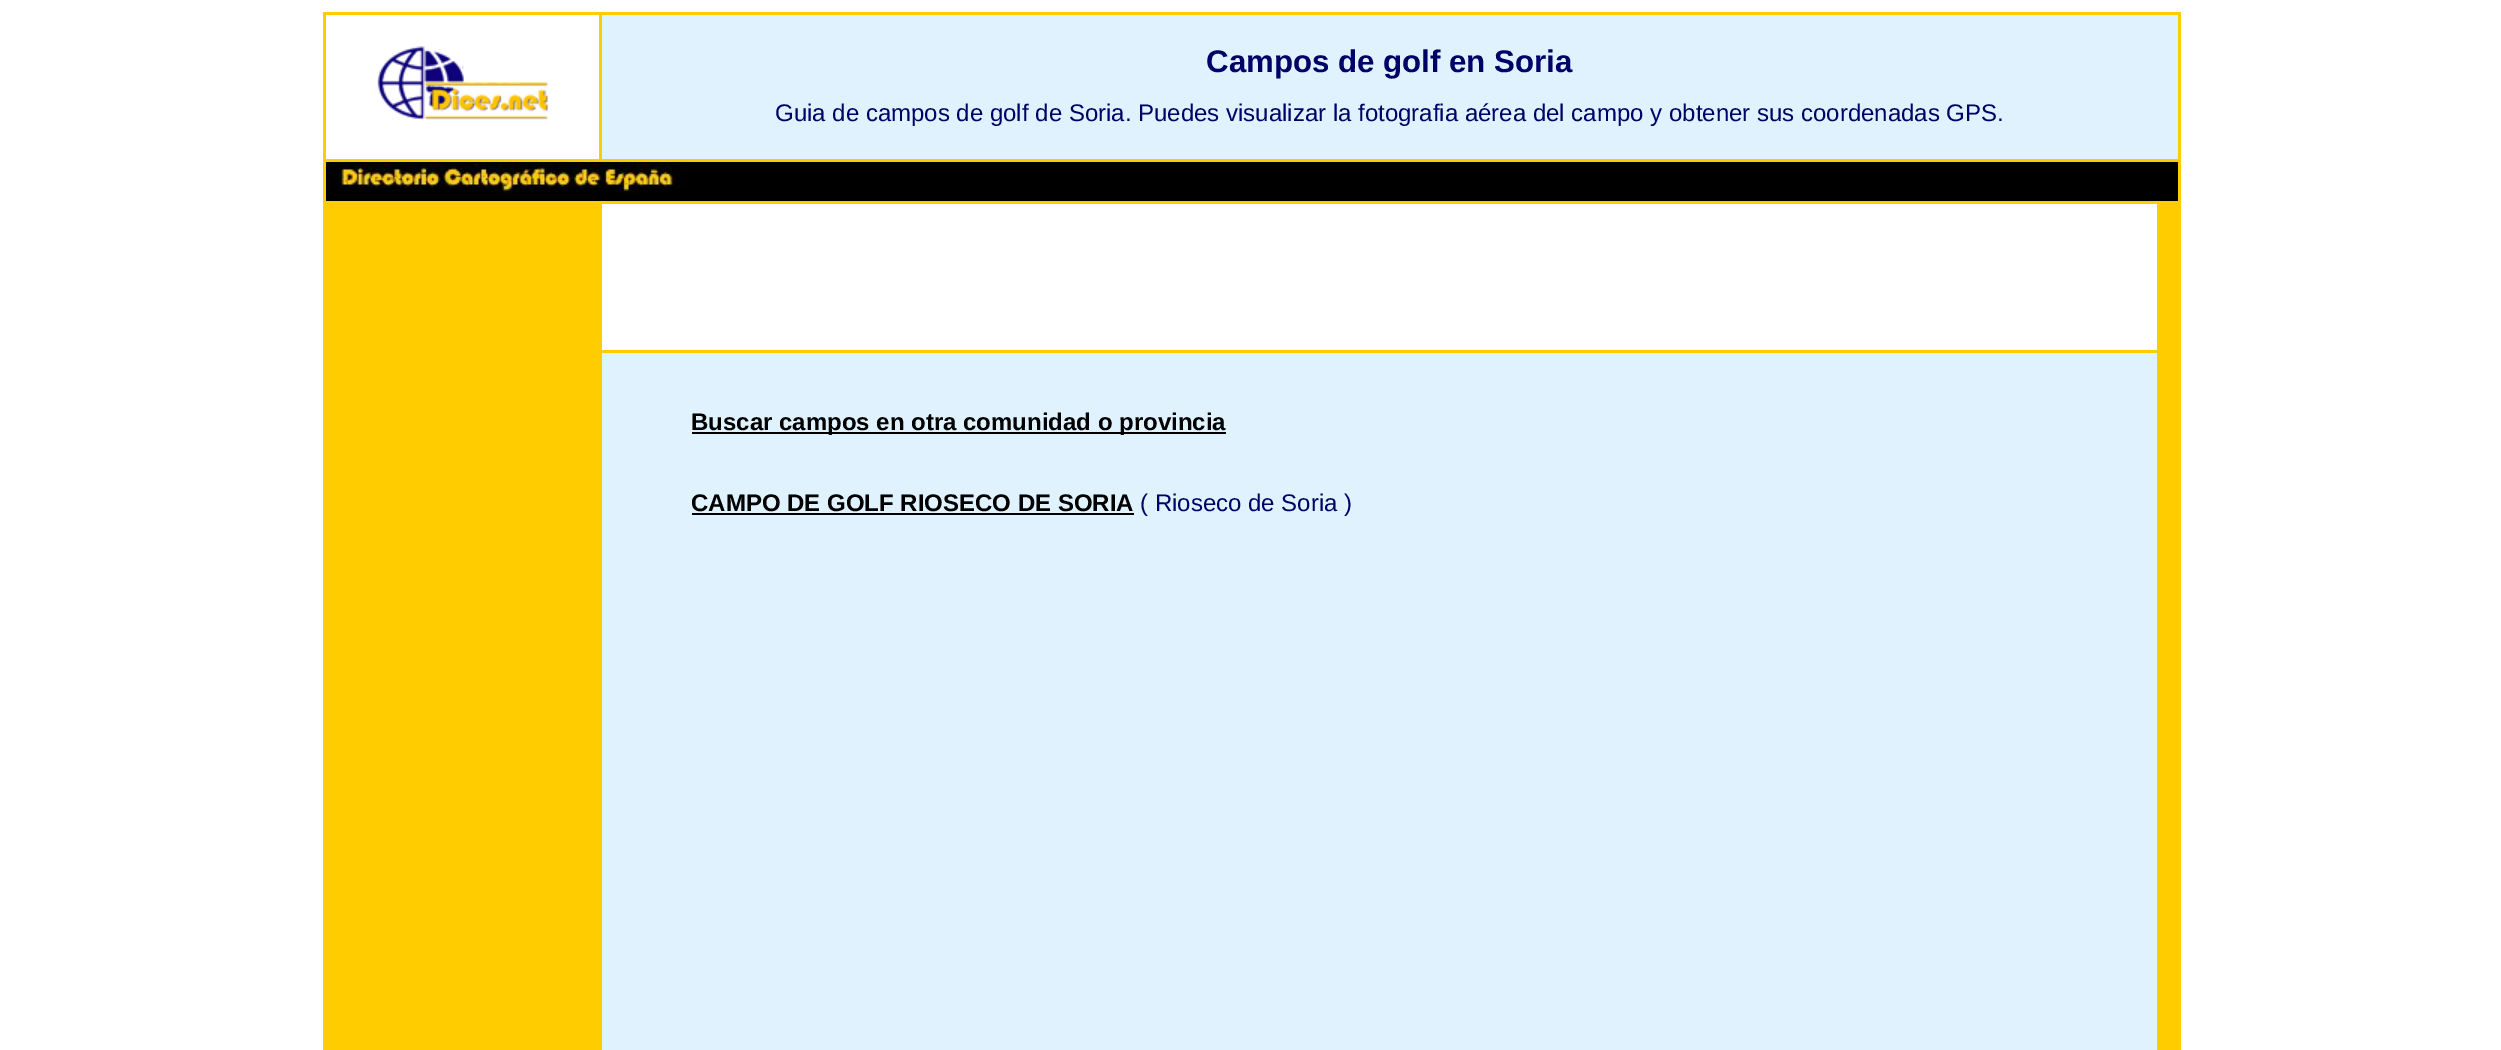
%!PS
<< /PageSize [2501 1050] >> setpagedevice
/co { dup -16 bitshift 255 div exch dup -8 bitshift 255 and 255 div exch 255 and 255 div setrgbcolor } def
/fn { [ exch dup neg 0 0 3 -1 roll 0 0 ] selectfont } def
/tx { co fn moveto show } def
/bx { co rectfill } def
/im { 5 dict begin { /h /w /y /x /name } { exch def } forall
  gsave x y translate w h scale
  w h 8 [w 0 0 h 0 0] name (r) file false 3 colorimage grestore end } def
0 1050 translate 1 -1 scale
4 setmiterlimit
0 0 2501 1050 16#FFFFFF bx
323 12 1858 1038 16#FFCC00 bx
326 15 273 144 16#FFFFFF bx
(media/1.raw) 377 46 172 74 im
602 15 1576 144 16#DFF2FD bx
326 162 1852 39 16#000000 bx
(media/2.raw) 327 163 361 31 im
602 204 1555 146 16#FFFFFF bx
602 353 1555 697 16#DFF2FD bx
692 432 534 2 16#000000 bx
692 513 442 2 16#000000 bx
(Campos de golf en Soria) 1206 72 /LiberationSans-Bold 31.25 16#000066 tx
(Guia de campos de golf de Soria. Puedes visualizar la fotografia aérea del campo y obtener sus coordenadas GPS.) 775 121 /LiberationSans-Regular 24 16#000066 tx
(Buscar campos en otra comunidad o provincia) 691 430 /LiberationSans-Bold 24 16#000000 tx
(CAMPO DE GOLF RIOSECO DE SORIA) 691 511 /LiberationSans-Bold 24 16#000000 tx
(\( Rioseco de Soria \)) 1140 511 /LiberationSans-Regular 24 16#000066 tx
showpage
